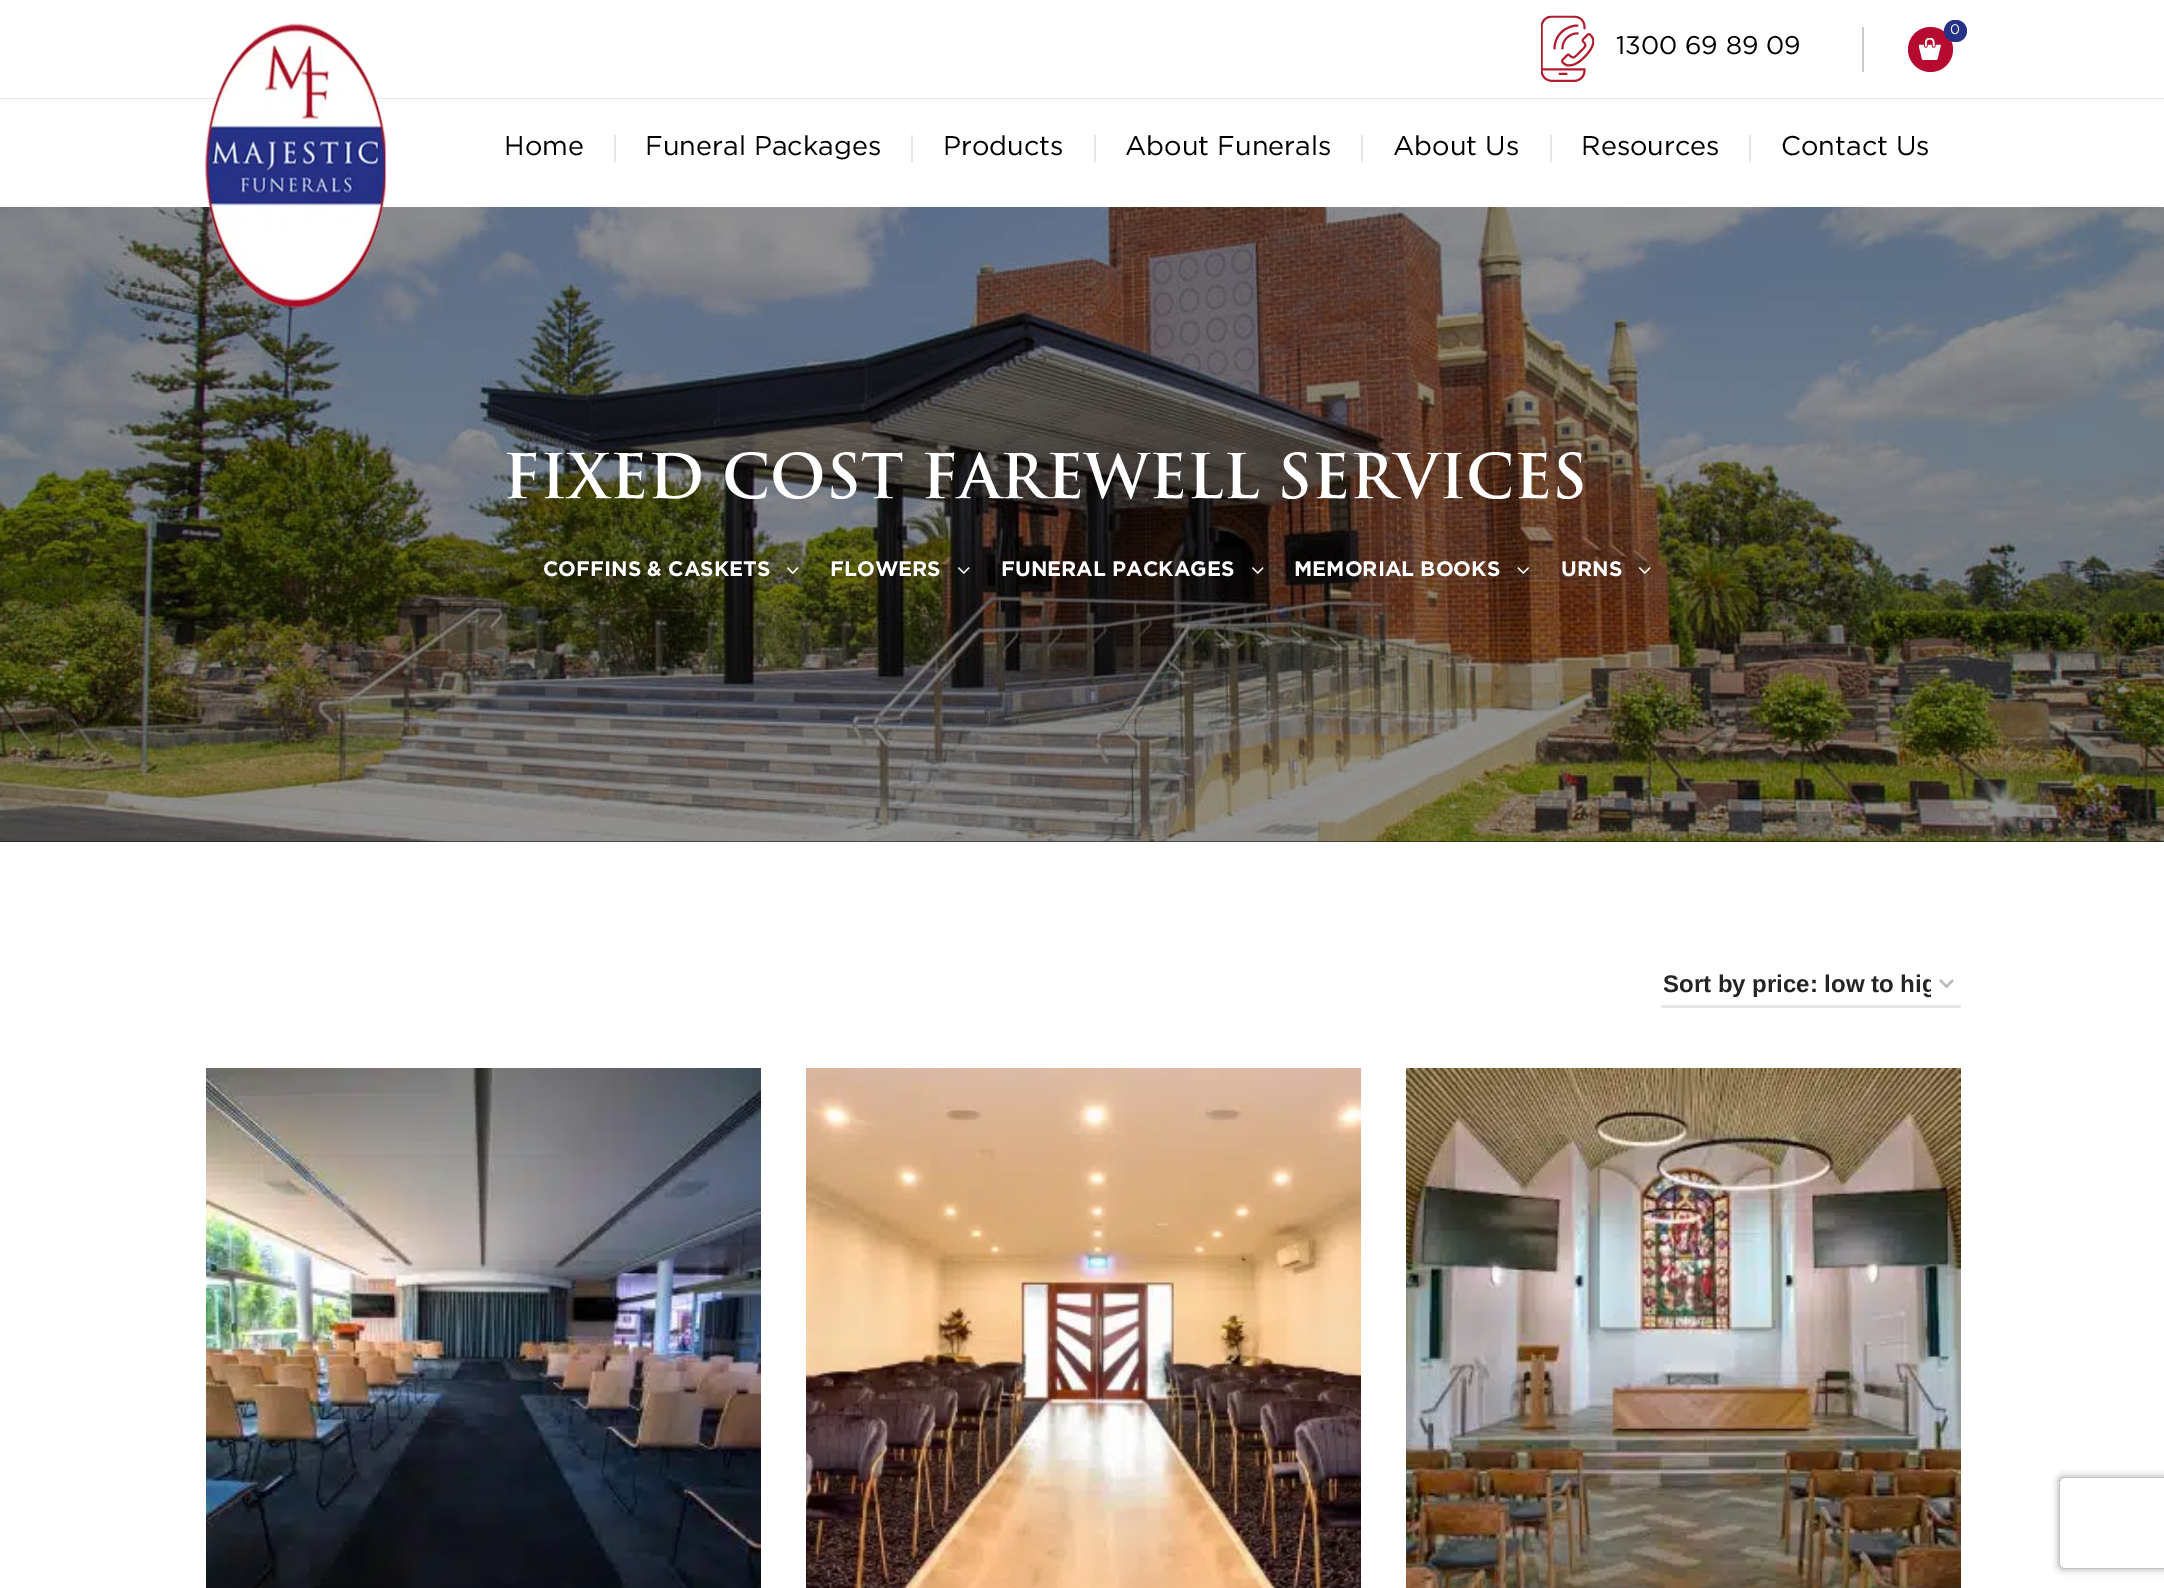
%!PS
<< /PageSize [2164 1588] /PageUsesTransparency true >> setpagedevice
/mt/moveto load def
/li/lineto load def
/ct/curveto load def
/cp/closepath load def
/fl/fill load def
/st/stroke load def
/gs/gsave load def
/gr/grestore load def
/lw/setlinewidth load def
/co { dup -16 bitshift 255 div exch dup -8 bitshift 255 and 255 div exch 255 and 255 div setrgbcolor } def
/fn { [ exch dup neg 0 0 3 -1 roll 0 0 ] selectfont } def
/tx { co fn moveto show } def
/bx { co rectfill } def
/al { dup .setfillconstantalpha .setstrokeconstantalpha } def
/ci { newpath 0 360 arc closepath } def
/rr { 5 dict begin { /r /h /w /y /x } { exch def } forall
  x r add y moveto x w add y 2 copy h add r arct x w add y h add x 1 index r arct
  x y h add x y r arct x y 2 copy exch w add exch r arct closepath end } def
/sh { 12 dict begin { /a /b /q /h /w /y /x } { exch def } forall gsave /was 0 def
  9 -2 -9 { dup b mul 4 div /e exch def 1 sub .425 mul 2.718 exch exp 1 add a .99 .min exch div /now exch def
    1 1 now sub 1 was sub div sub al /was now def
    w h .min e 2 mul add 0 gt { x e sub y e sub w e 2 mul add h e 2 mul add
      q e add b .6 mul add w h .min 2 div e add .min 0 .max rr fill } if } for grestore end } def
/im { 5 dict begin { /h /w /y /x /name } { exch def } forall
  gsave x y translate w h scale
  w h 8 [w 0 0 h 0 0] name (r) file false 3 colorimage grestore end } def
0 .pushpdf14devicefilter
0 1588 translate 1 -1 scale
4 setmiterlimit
0 0 2164 1588 16#FFFFFF bx
0 98 2164 1 16#E6E6E6 bx
0 841 2164 1 16#060606 bx
(media/4.raw) 0 207 2164 635 im
(media/1.raw) 205 23 181 285 im
1862 27 2 45 16#CACACA bx
16#B70A30 co
1930.5 49.5 22.5 ci fl
(media/2.raw) 1919 38 22 22 im
16#263286 co
1944 20 23 22 11 rr fl
(media/3.raw) 1541 15 54 67 im
614 135 2 27 16#E6E6E6 bx
911 135 2 27 16#E6E6E6 bx
1094 135 2 27 16#E6E6E6 bx
1361 135 2 27 16#E6E6E6 bx
1550 135 2 27 16#E6E6E6 bx
1749 135 2 27 16#E6E6E6 bx
(media/5.raw) 787 567 12 7 im
(media/6.raw) 958 567 12 7 im
(media/7.raw) 1252 567 12 7 im
(media/8.raw) 1517 567 12 7 im
(media/9.raw) 1639 567 12 7 im
16#BBBBBB co
2.2 lw
1940 980 mt 1946.5 986.5 li 1953 980 li st
1661 1005 300 3 16#E6E6E6 bx
(media/10.raw) 206 1068 555 520 im
(media/11.raw) 806 1068 555 520 im
(media/12.raw) 1406 1068 555 520 im
gs
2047 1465 mt 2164 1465 li 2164 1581 li 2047 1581 li cp 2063 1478 mt 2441 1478 li 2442.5 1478 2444 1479.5 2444 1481 ct 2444 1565 li 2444 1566.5 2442.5 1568 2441 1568 ct 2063 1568 li 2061.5 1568 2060 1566.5 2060 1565 ct 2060 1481 li 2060 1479.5 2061.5 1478 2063 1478 ct cp eoclip newpath
16#808080 co
2060 1478 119 90 3 4 1 sh
gr
(0) 1950 34 /Gotham-Regular 14 16#FFFFFF tx
(1300 69 89 09) 1616 54 /Gotham-Regular 25.5 16#000000 tx
(Home) 504 155 /Gotham-Regular 27 16#000000 tx
(Funeral Packages) 645 155 /Gotham-Regular 27 16#000000 tx
(Products) 943 155 /Gotham-Regular 27 16#000000 tx
(About Funerals) 1125 155 /Gotham-Regular 27 16#000000 tx
(About Us) 1393 155 /Gotham-Regular 27 16#000000 tx
(Resources) 1581 155 /Gotham-Regular 27 16#000000 tx
(Contact Us) 1781 155 /Gotham-Regular 27 16#000000 tx
(FIXED COST FAREWELL SERVICES) 503 498 /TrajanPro-Bold 60 16#FFFFFF tx
(COFFINS & CASKETS) 543 576 /Gotham-Bold 21 16#FFFFFF tx
(FLOWERS) 830 576 /Gotham-Bold 21 16#FFFFFF tx
(FUNERAL PACKAGES) 1001 576 /Gotham-Bold 21 16#FFFFFF tx
(MEMORIAL BOOKS) 1294 576 /Gotham-Bold 21 16#FFFFFF tx
(URNS) 1561 576 /Gotham-Bold 21 16#FFFFFF tx
gs
1664 969 267 29 rectclip
(Sort by price: low to hig) 1663 992 /LiberationSans-Bold 24 16#242424 tx
gr
.poppdf14devicefilter showpage
